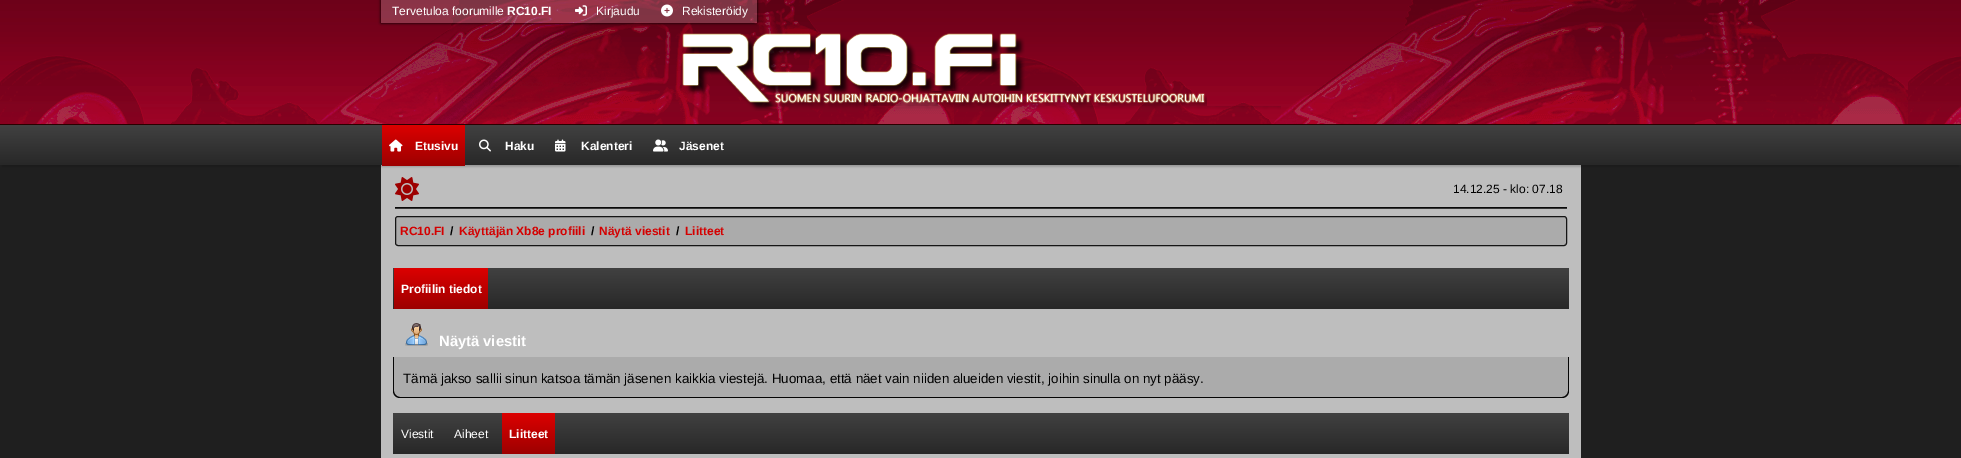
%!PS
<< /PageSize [1961 458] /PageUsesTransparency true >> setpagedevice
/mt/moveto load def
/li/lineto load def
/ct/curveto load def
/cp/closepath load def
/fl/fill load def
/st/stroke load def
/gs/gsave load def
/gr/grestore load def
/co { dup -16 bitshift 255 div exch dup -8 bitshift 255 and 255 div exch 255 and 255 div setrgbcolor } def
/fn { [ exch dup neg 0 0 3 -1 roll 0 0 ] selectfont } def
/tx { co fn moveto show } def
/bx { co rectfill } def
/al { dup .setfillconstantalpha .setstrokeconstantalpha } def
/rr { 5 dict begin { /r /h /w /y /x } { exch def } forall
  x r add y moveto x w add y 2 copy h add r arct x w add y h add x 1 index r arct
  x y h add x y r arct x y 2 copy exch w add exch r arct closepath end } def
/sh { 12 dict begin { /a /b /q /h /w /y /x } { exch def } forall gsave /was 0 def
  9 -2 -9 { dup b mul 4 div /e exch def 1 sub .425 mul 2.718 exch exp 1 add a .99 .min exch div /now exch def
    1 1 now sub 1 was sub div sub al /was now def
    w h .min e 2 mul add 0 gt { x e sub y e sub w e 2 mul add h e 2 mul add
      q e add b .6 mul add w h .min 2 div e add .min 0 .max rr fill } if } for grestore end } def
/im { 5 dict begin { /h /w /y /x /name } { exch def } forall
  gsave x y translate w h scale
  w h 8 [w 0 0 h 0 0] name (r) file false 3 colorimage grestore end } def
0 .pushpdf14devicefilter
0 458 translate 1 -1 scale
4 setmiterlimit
0 0 1961 458 16#1F1F1F bx
(media/1.raw) 0 0 1961 124 im
0 124 1961 1 16#2B0000 bx
(media/2.raw) 682 33 599 78 im
381 165 1200 293 16#BEBEBE bx
gs
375 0 mt 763 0 li 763 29 li 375 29 li cp 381 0 mt 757 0 li 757 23 li 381 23 li cp eoclip newpath
16#000000 co
381 0 376 23 0 1.5 1 sh
gr
0.2 al
381 0 376 23 16#FFFFFF bx
1 al
(media/3.raw) 575 5 12 11 im
(media/4.raw) 661 4 12 13 im
395 207 1172 1 16#0A0A0A bx
395 208 1172 1 16#373737 bx
(media/5.raw) 395 177 24 24 im
16#ABABAB co
395.5 216.5 1171 29 2.5 rr gs fl gr
16#151515 co
st
gs 393 268 mt 1569 268 li 1569 309 li 393 309 li cp clip newpath
<< /ShadingType 2 /ColorSpace /DeviceRGB /Coords [981 268 981 309] /Extend [true true] /Function << /FunctionType 2 /Domain [0 1] /C0 [.255 .255 .255] /C1 [.157 .157 .157] /N 1 >> >> shfill gr
gs 394 268 mt 488 268 li 488 309 li 394 309 li cp clip newpath
<< /ShadingType 2 /ColorSpace /DeviceRGB /Coords [441 268 441 309] /Extend [true true] /Function << /FunctionType 2 /Domain [0 1] /C0 [.863 0 0] /C1 [.616 0 0] /N 1 >> >> shfill gr
(media/6.raw) 405 323 23 23 im
16#ABABAB co
393 357 mt 1569 357 li 1569 391 li 1569 395 1566 398 1562 398 ct 400 398 li 396 398 393 395 393 391 ct cp fl
16#050505 co
393 357 mt 1569 357 li 1569 391 li 1569 395 1566 398 1562 398 ct 400 398 li 396 398 393 395 393 391 ct cp 394 357 mt 1568 357 li 1568 391 li 1568 394 1565 397 1562 397 ct 400 397 li 397 397 394 394 394 391 ct cp eofill
gs 393 413 mt 1569 413 li 1569 454 li 393 454 li cp clip newpath
<< /ShadingType 2 /ColorSpace /DeviceRGB /Coords [981 413 981 454] /Extend [true true] /Function << /FunctionType 2 /Domain [0 1] /C0 [.255 .255 .255] /C1 [.157 .157 .157] /N 1 >> >> shfill gr
gs 502 413 mt 555 413 li 555 454 li 502 454 li cp clip newpath
<< /ShadingType 2 /ColorSpace /DeviceRGB /Coords [529 413 529 454] /Extend [true true] /Function << /FunctionType 2 /Domain [0 1] /C0 [.863 0 0] /C1 [.616 0 0] /N 1 >> >> shfill gr
16#000000 co
2 131 1957 36 0 1 .2 sh
gs 0 125 mt 1961 125 li 1961 165 li 0 165 li cp clip newpath
<< /ShadingType 2 /ColorSpace /DeviceRGB /Coords [981 125 981 165] /Extend [true true] /Function << /FunctionType 2 /Domain [0 1] /C0 [.255 .255 .255] /C1 [.157 .157 .157] /N 1 >> >> shfill gr
gs 382 125 mt 465 125 li 465 166 li 382 166 li cp clip newpath
<< /ShadingType 2 /ColorSpace /DeviceRGB /Coords [424 125 424 166] /Extend [true true] /Function << /FunctionType 2 /Domain [0 1] /C0 [.863 0 0] /C1 [.616 0 0] /N 1 >> >> shfill gr
(media/7.raw) 389 139 14 13 im
(media/8.raw) 479 139 12 13 im
(media/9.raw) 555 139 11 13 im
(media/10.raw) 653 139 15 13 im
(Tervetuloa foorumille) 392 15 /LiberationSans-Regular 12 16#FFFFFF tx
(RC10.FI) 507 15 /LiberationSans-Bold 12 16#FFFFFF tx
(Kirjaudu) 596 15 /LiberationSans-Regular 12 16#FFFFFF tx
(Rekisteröidy) 682 15 /LiberationSans-Regular 12 16#FFFFFF tx
(14.12.25 - klo: 07.18) 1453 193 /LiberationSans-Regular 12 16#000000 tx
(RC10.FI) 400 235 /LiberationSans-Bold 12 16#D40000 tx
(/) 450 235 /LiberationSans-Bold 12 16#000000 tx
(Käyttäjän Xb8e profiili) 459 235 /LiberationSans-Bold 12 16#D40000 tx
(/) 591 235 /LiberationSans-Bold 12 16#000000 tx
(Näytä viestit) 599 235 /LiberationSans-Bold 12 16#D40000 tx
(/) 676 235 /LiberationSans-Bold 12 16#000000 tx
(Liitteet) 685 235 /LiberationSans-Bold 12 16#D40000 tx
(Profiilin tiedot) 401 293 /LiberationSans-Bold 12 16#FFFFFF tx
(Näytä viestit) 439 346 /LiberationSans-Bold 14.75 16#FFFFFF tx
(Tämä jakso sallii sinun katsoa tämän jäsenen kaikkia viestejä. Huomaa, että näet vain niiden alueiden viestit, joihin sinulla on nyt pääsy.) 403 383 /LiberationSans-Regular 13.33 16#000000 tx
(Viestit) 401 438 /LiberationSans-Regular 12 16#FFFFFF tx
(Aiheet) 454 438 /LiberationSans-Regular 12 16#FFFFFF tx
(Liitteet) 509 438 /LiberationSans-Bold 12 16#FFFFFF tx
(Etusivu) 415 150 /LiberationSans-Bold 12 16#FFFFFF tx
(Haku) 505 150 /LiberationSans-Bold 12 16#FFFFFF tx
(Kalenteri) 581 150 /LiberationSans-Bold 12 16#FFFFFF tx
(Jäsenet) 679 150 /LiberationSans-Bold 12 16#FFFFFF tx
.poppdf14devicefilter showpage
